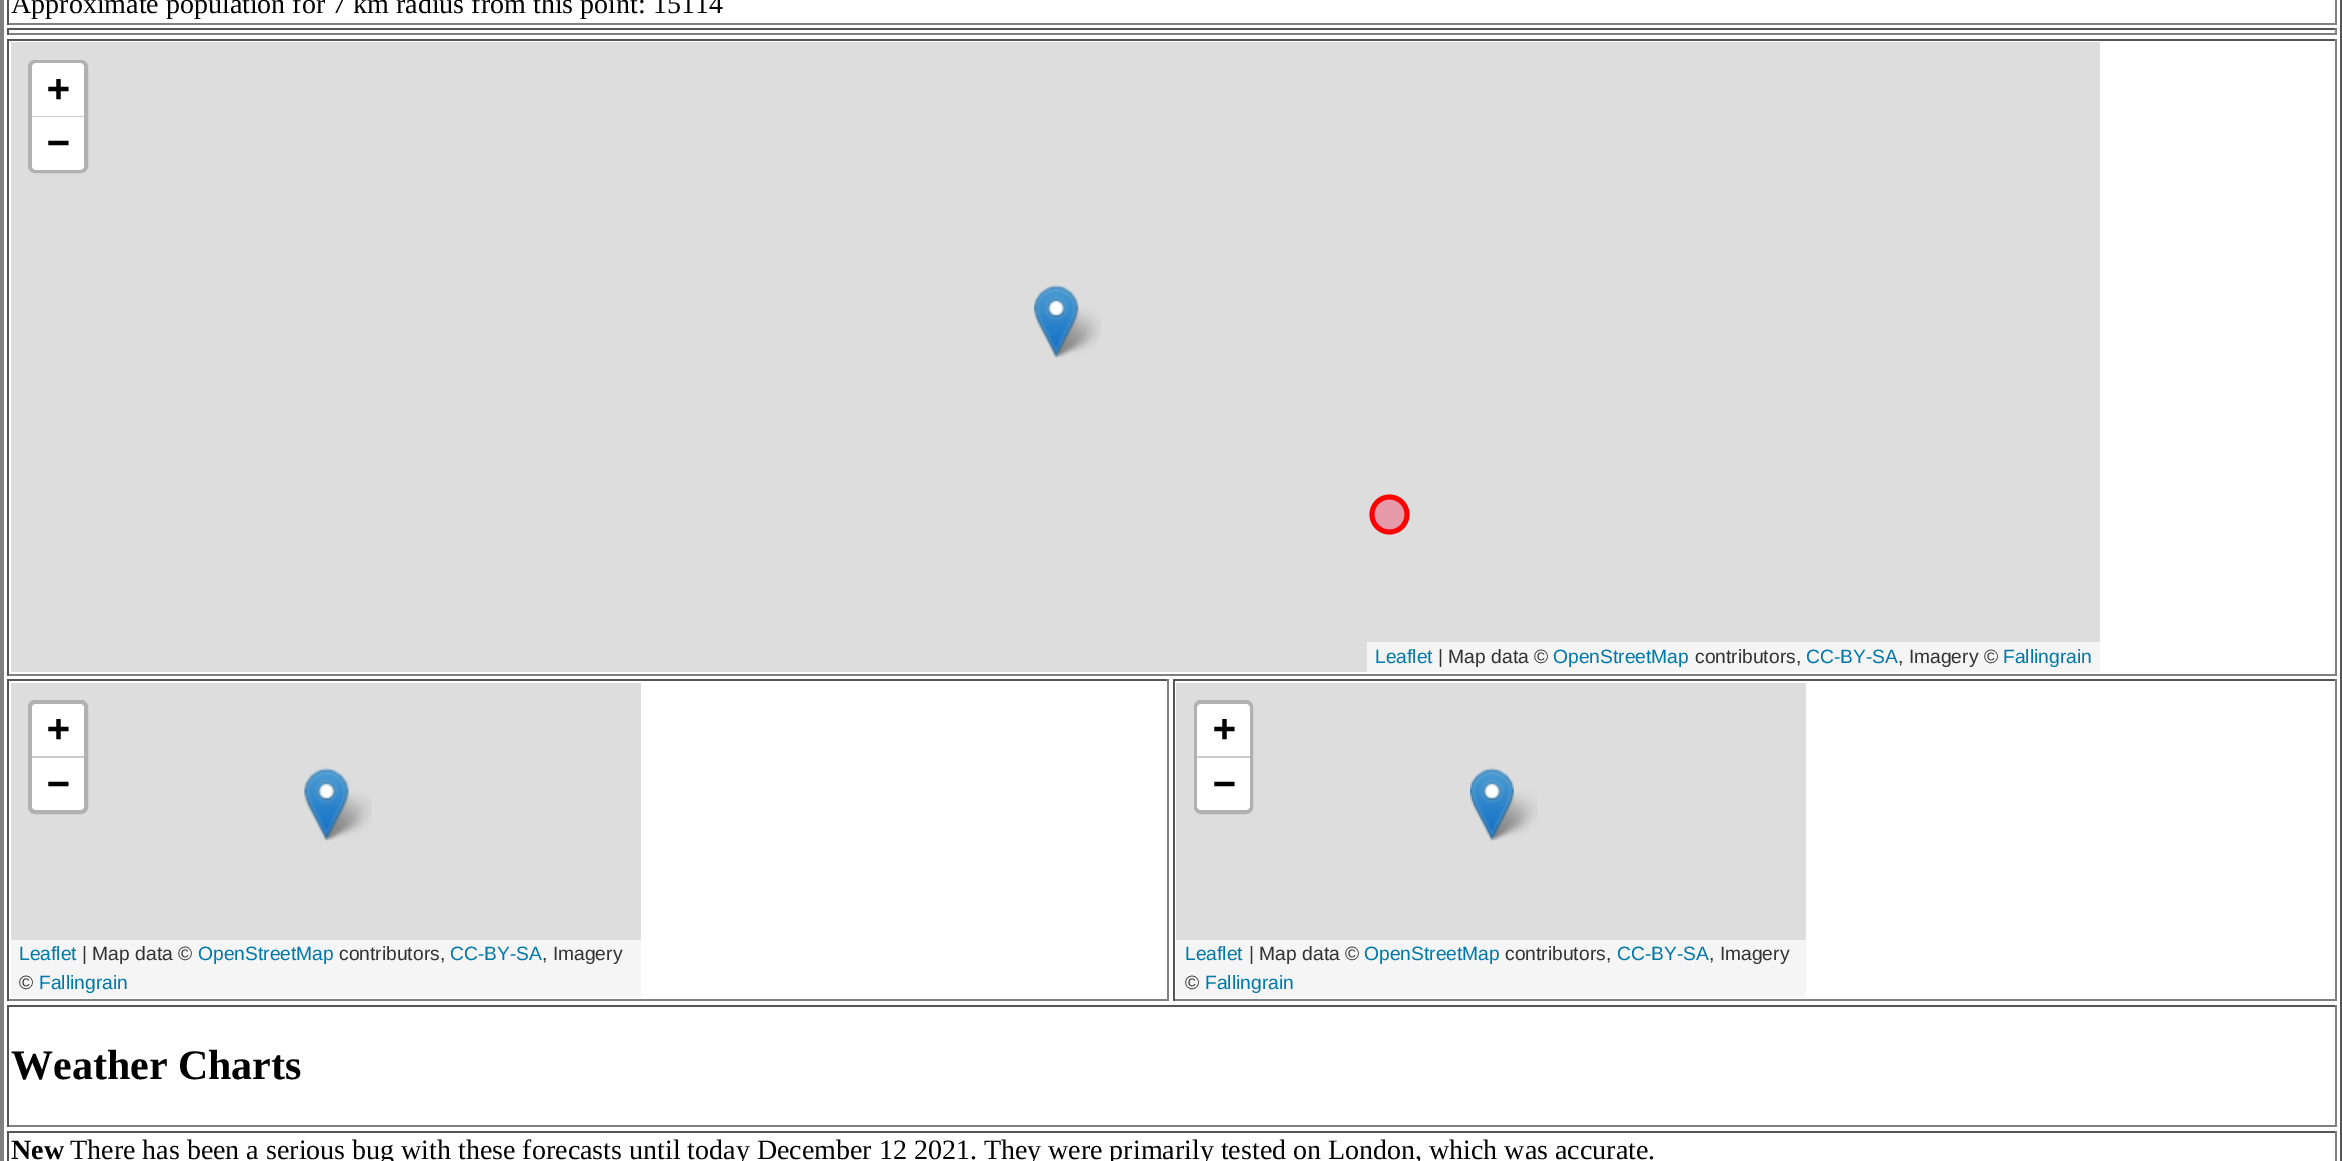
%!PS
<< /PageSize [2342 1161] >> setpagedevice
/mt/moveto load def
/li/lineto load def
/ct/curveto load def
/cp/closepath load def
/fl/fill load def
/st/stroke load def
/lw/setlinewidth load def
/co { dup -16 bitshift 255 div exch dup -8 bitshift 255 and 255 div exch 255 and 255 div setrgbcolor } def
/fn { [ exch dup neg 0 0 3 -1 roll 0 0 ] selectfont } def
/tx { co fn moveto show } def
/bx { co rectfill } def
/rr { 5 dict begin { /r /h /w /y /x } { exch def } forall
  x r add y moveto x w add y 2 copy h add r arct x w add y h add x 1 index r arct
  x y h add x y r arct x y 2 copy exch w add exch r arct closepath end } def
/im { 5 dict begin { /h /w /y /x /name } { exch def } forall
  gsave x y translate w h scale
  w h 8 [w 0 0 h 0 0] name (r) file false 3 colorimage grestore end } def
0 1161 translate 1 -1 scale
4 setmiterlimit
0 0 2342 1161 16#FFFFFF bx
16#555555 co
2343 -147 mt 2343 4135 li 2340 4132 li 2340 -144 li cp fl
16#808080 co
0 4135 mt 0 -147 li 4 -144 li 4 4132 li cp fl
2335 0 2 25 16#808080 bx
7 23 2329 2 16#808080 bx
7 0 2 25 16#555555 bx
7 28 2329 2 16#555555 bx
2335 28 2 7 16#808080 bx
7 33 2329 2 16#808080 bx
7 28 2 7 16#555555 bx
7 39 2329 2 16#555555 bx
2335 39 2 637 16#808080 bx
7 674 2329 2 16#808080 bx
7 39 2 637 16#555555 bx
11 42 2089 630 16#DDDDDD bx
16#B1B1B1 co
4 lw
30 62 56 109 5 rr st
16#FFFFFF co
36 63 mt 80 63 li 82 63 84 65 84 67 ct 84 117 li 32 117 li 32 67 li 32 65 34 63 36 63 ct cp fl
32 116 52 1 16#CCCCCC bx
16#FFFFFF co
32 117 mt 84 117 li 84 166 li 84 168 82 170 80 170 ct 36 170 li 34 170 32 168 32 166 ct cp fl
1367 642 733 30 16#F5F5F5 bx
(media/2.raw) 1050 307 52 51 im
(media/1.raw) 1034 284 45 74 im
(media/3.raw) 1369 494 41 41 im
7 679 1162 2 16#555555 bx
1167 679 2 322 16#808080 bx
7 999 1162 2 16#808080 bx
7 679 2 322 16#555555 bx
11 683 630 257 16#DDDDDD bx
16#B1B1B1 co
30 702 56 110 5 rr st
16#FFFFFF co
36 704 mt 80 704 li 82 704 84 706 84 708 ct 84 758 li 32 758 li 32 708 li 32 706 34 704 36 704 ct cp fl
32 756 52 2 16#CCCCCC bx
16#FFFFFF co
32 758 mt 84 758 li 84 806 li 84 808 82 810 80 810 ct 36 810 li 34 810 32 808 32 806 ct cp fl
11 940 630 58 16#F5F5F5 bx
(media/5.raw) 320 790 52 51 im
(media/4.raw) 304 767 45 74 im
1173 679 1163 2 16#555555 bx
2335 679 2 322 16#808080 bx
1173 999 1163 2 16#808080 bx
1173 679 2 322 16#555555 bx
1176 683 630 257 16#DDDDDD bx
16#B1B1B1 co
1196 702 55 110 5 rr st
16#FFFFFF co
1201 704 mt 1246 704 li 1248 704 1250 706 1250 708 ct 1250 758 li 1197 758 li 1197 708 li 1197 706 1199 704 1201 704 ct cp fl
1197 756 53 2 16#CCCCCC bx
16#FFFFFF co
1197 758 mt 1250 758 li 1250 806 li 1250 808 1248 810 1246 810 ct 1201 810 li 1199 810 1197 808 1197 806 ct cp fl
1176 940 630 58 16#F5F5F5 bx
(media/7.raw) 1486 790 52 51 im
(media/6.raw) 1470 767 44 74 im
7 1005 2329 2 16#555555 bx
2335 1005 2 122 16#808080 bx
7 1125 2329 2 16#808080 bx
7 1005 2 122 16#555555 bx
7 1131 2329 2 16#555555 bx
2335 1131 2 30 16#808080 bx
7 1131 2 30 16#555555 bx
(Approximate population for 7 km radius from this point: 15114) 11 13 /LiberationSerif-Regular 28 16#000000 tx
(+) 47 101 /DejaVuSansMono-Bold 38 16#000000 tx
(−) 47 155 /DejaVuSansMono-Bold 38 16#000000 tx
(Leaflet) 1375 663 /LiberationSans-Regular 19.25 16#0078A8 tx
(| Map data ©) 1438 663 /LiberationSans-Regular 19.25 16#333333 tx
(OpenStreetMap) 1553 663 /LiberationSans-Regular 19.25 16#0078A8 tx
(contributors,) 1695 663 /LiberationSans-Regular 19.25 16#333333 tx
(CC-BY-SA) 1806 663 /LiberationSans-Regular 19.25 16#0078A8 tx
(, Imagery ©) 1898 663 /LiberationSans-Regular 19.25 16#333333 tx
(Fallingrain) 2003 663 /LiberationSans-Regular 19.25 16#0078A8 tx
(+) 47 741 /DejaVuSansMono-Bold 38 16#000000 tx
(−) 47 796 /DejaVuSansMono-Bold 38 16#000000 tx
(Leaflet) 19 960 /LiberationSans-Regular 19.25 16#0078A8 tx
(| Map data ©) 82 960 /LiberationSans-Regular 19.25 16#333333 tx
(OpenStreetMap) 198 960 /LiberationSans-Regular 19.25 16#0078A8 tx
(contributors,) 339 960 /LiberationSans-Regular 19.25 16#333333 tx
(CC-BY-SA) 450 960 /LiberationSans-Regular 19.25 16#0078A8 tx
(, Imagery) 542 960 /LiberationSans-Regular 19.25 16#333333 tx
(©) 19 989 /LiberationSans-Regular 19.25 16#333333 tx
(Fallingrain) 39 989 /LiberationSans-Regular 19.25 16#0078A8 tx
(+) 1213 741 /DejaVuSansMono-Bold 38 16#000000 tx
(−) 1213 796 /DejaVuSansMono-Bold 38 16#000000 tx
(Leaflet) 1185 960 /LiberationSans-Regular 19.25 16#0078A8 tx
(| Map data ©) 1249 960 /LiberationSans-Regular 19.25 16#333333 tx
(OpenStreetMap) 1364 960 /LiberationSans-Regular 19.25 16#0078A8 tx
(contributors,) 1505 960 /LiberationSans-Regular 19.25 16#333333 tx
(CC-BY-SA) 1617 960 /LiberationSans-Regular 19.25 16#0078A8 tx
(, Imagery) 1709 960 /LiberationSans-Regular 19.25 16#333333 tx
(©) 1185 989 /LiberationSans-Regular 19.25 16#333333 tx
(Fallingrain) 1205 989 /LiberationSans-Regular 19.25 16#0078A8 tx
(Weather Charts) 11 1079 /LiberationSerif-Bold 42 16#000000 tx
(New) 11 1159 /LiberationSerif-Bold 28 16#000000 tx
(There has been a serious bug with these forecasts until today December 12 2021. They were primarily tested on London, which was accurate.) 70 1159 /LiberationSerif-Regular 28 16#000000 tx
showpage
